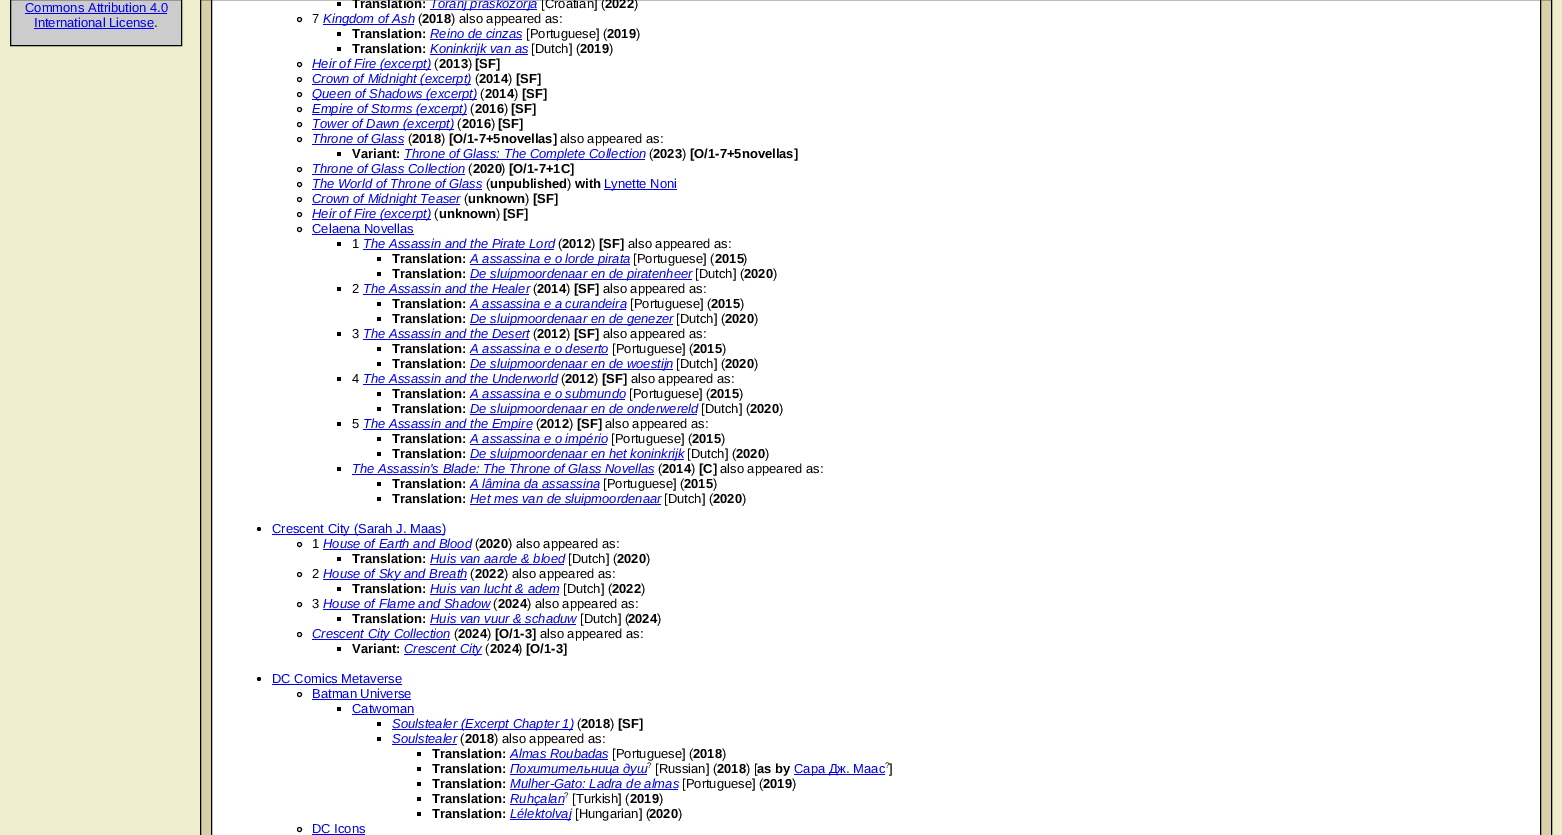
%!PS
<< /PageSize [1562 835] >> setpagedevice
/mt/moveto load def
/li/lineto load def
/cp/closepath load def
/fl/fill load def
/st/stroke load def
/gs/gsave load def
/gr/grestore load def
/co { dup -16 bitshift 255 div exch dup -8 bitshift 255 and 255 div exch 255 and 255 div setrgbcolor } def
/fn { [ exch dup neg 0 0 3 -1 roll 0 0 ] selectfont } def
/tx { co fn moveto show } def
/bx { co rectfill } def
/ci { newpath 0 360 arc closepath } def
0 835 translate 1 -1 scale
4 setmiterlimit
0 0 1562 835 16#EEEECC bx
16#CCCCCC co
10.5 -.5 mt 181.5 -.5 li 181.5 45.5 li 10.5 45.5 li cp gs fl gr
16#000000 co
st
25 13 142 1 16#0000EE bx
34 28 120 1 16#0000EE bx
16#D9D0A9 co
200.5 -.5 mt 1551.5 -.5 li 1551.5 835.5 li 200.5 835.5 li cp gs fl gr
16#000000 co
st
16#FFFFFF co
211.5 -.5 mt 1540.5 -.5 li 1540.5 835.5 li 211.5 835.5 li cp gs fl gr
16#000000 co
st
337 2 4 4 16#000000 bx
430 9 107 1 16#0000EE bx
16#000000 co
299.5 19.5 2 ci st
323 24 91 1 16#0000EE bx
337 32 4 4 16#000000 bx
430 39 92 1 16#0000EE bx
337 47 4 4 16#000000 bx
430 54 98 1 16#0000EE bx
16#000000 co
299.5 64.5 2 ci st
312 69 119 1 16#0000EE bx
16#000000 co
299.5 79.5 2 ci st
312 84 159 1 16#0000EE bx
16#000000 co
299.5 94.5 2 ci st
312 99 165 1 16#0000EE bx
16#000000 co
299.5 109.5 2 ci st
312 114 155 1 16#0000EE bx
16#000000 co
299.5 124.5 2 ci st
312 129 142 1 16#0000EE bx
16#000000 co
299.5 139.5 2 ci st
312 144 92 1 16#0000EE bx
337 152 4 4 16#000000 bx
404 159 241 1 16#0000EE bx
16#000000 co
299.5 169.5 2 ci st
312 174 153 1 16#0000EE bx
16#000000 co
299.5 184.5 2 ci st
312 189 170 1 16#0000EE bx
604 189 73 1 16#0000EE bx
16#000000 co
299.5 199.5 2 ci st
312 204 148 1 16#0000EE bx
16#000000 co
299.5 214.5 2 ci st
312 219 119 1 16#0000EE bx
16#000000 co
299.5 229.5 2 ci st
312 234 102 1 16#0000EE bx
337 242 4 4 16#000000 bx
363 249 191 1 16#0000EE bx
377 257 4 4 16#000000 bx
470 264 160 1 16#0000EE bx
377 272 4 4 16#000000 bx
470 279 222 1 16#0000EE bx
337 287 4 4 16#000000 bx
363 294 166 1 16#0000EE bx
377 302 4 4 16#000000 bx
470 309 156 1 16#0000EE bx
377 317 4 4 16#000000 bx
470 324 203 1 16#0000EE bx
337 332 4 4 16#000000 bx
363 339 166 1 16#0000EE bx
377 347 4 4 16#000000 bx
470 354 138 1 16#0000EE bx
377 362 4 4 16#000000 bx
470 369 203 1 16#0000EE bx
337 377 4 4 16#000000 bx
363 384 194 1 16#0000EE bx
377 392 4 4 16#000000 bx
470 399 155 1 16#0000EE bx
377 407 4 4 16#000000 bx
470 414 227 1 16#0000EE bx
337 422 4 4 16#000000 bx
363 429 169 1 16#0000EE bx
377 437 4 4 16#000000 bx
470 444 137 1 16#0000EE bx
377 452 4 4 16#000000 bx
470 459 214 1 16#0000EE bx
337 467 4 4 16#000000 bx
352 474 302 1 16#0000EE bx
377 482 4 4 16#000000 bx
470 489 129 1 16#0000EE bx
377 497 4 4 16#000000 bx
470 504 191 1 16#0000EE bx
16#000000 co
259 529 2 ci fl
272 534 173 1 16#0000EE bx
16#000000 co
299.5 544.5 2 ci st
323 549 148 1 16#0000EE bx
337 557 4 4 16#000000 bx
430 564 134 1 16#0000EE bx
16#000000 co
299.5 574.5 2 ci st
323 579 144 1 16#0000EE bx
337 587 4 4 16#000000 bx
430 594 129 1 16#0000EE bx
16#000000 co
299.5 604.5 2 ci st
323 609 167 1 16#0000EE bx
337 617 4 4 16#000000 bx
430 624 146 1 16#0000EE bx
16#000000 co
299.5 634.5 2 ci st
312 639 138 1 16#0000EE bx
337 647 4 4 16#000000 bx
404 654 78 1 16#0000EE bx
16#000000 co
259 679 2 ci fl
272 684 130 1 16#0000EE bx
16#000000 co
299.5 694.5 2 ci st
312 699 99 1 16#0000EE bx
337 707 4 4 16#000000 bx
352 714 62 1 16#0000EE bx
377 722 4 4 16#000000 bx
392 729 181 1 16#0000EE bx
377 737 4 4 16#000000 bx
392 744 65 1 16#0000EE bx
417 752 4 4 16#000000 bx
510 759 98 1 16#0000EE bx
417 767 4 4 16#000000 bx
510 774 137 1 16#0000EE bx
794 774 91 1 16#0000EE bx
417 782 4 4 16#000000 bx
510 789 168 1 16#0000EE bx
417 797 4 4 16#000000 bx
510 804 54 1 16#0000EE bx
417 812 4 4 16#000000 bx
510 819 61 1 16#0000EE bx
16#000000 co
299.5 829.5 2 ci st
312 834 53 1 16#0000EE bx
(Commons Attribution 4.0) 25 12 /LiberationSans-Regular 13 16#0000EE tx
(International License) 34 27 /LiberationSans-Regular 13 16#0000EE tx
(.) 154 27 /LiberationSans-Regular 13 16#000000 tx
(Translation:) 352 8 /LiberationSans-Bold 13 16#000000 tx
(Toranj praskozorja) 430 8 /LiberationSans-Italic 13 16#0000EE tx
([Croatian] \() 541 8 /LiberationSans-Regular 13 16#000000 tx
(2022) 605 8 /LiberationSans-Bold 13 16#000000 tx
(\)) 634 8 /LiberationSans-Regular 13 16#000000 tx
(7) 312 23 /LiberationSans-Regular 13 16#000000 tx
(Kingdom of Ash) 323 23 /LiberationSans-Italic 13 16#0000EE tx
(\() 418 23 /LiberationSans-Regular 13 16#000000 tx
(2018) 422 23 /LiberationSans-Bold 13 16#000000 tx
(\) also appeared as:) 451 23 /LiberationSans-Regular 13 16#000000 tx
(Translation:) 352 38 /LiberationSans-Bold 13 16#000000 tx
(Reino de cinzas) 430 38 /LiberationSans-Italic 13 16#0000EE tx
([Portuguese] \() 526 38 /LiberationSans-Regular 13 16#000000 tx
(2019) 607 38 /LiberationSans-Bold 13 16#000000 tx
(\)) 636 38 /LiberationSans-Regular 13 16#000000 tx
(Translation:) 352 53 /LiberationSans-Bold 13 16#000000 tx
(Koninkrijk van as) 430 53 /LiberationSans-Italic 13 16#0000EE tx
([Dutch] \() 531 53 /LiberationSans-Regular 13 16#000000 tx
(2019) 580 53 /LiberationSans-Bold 13 16#000000 tx
(\)) 609 53 /LiberationSans-Regular 13 16#000000 tx
(Heir of Fire \(excerpt\)) 312 68 /LiberationSans-Italic 13 16#0000EE tx
(\() 434 68 /LiberationSans-Regular 13 16#000000 tx
(2013) 439 68 /LiberationSans-Bold 13 16#000000 tx
(\)) 468 68 /LiberationSans-Regular 13 16#000000 tx
([SF]) 475 68 /LiberationSans-Bold 13 16#000000 tx
(Crown of Midnight \(excerpt\)) 312 83 /LiberationSans-Italic 13 16#0000EE tx
(\() 475 83 /LiberationSans-Regular 13 16#000000 tx
(2014) 479 83 /LiberationSans-Bold 13 16#000000 tx
(\)) 508 83 /LiberationSans-Regular 13 16#000000 tx
([SF]) 516 83 /LiberationSans-Bold 13 16#000000 tx
(Queen of Shadows \(excerpt\)) 312 98 /LiberationSans-Italic 13 16#0000EE tx
(\() 480 98 /LiberationSans-Regular 13 16#000000 tx
(2014) 485 98 /LiberationSans-Bold 13 16#000000 tx
(\)) 514 98 /LiberationSans-Regular 13 16#000000 tx
([SF]) 522 98 /LiberationSans-Bold 13 16#000000 tx
(Empire of Storms \(excerpt\)) 312 113 /LiberationSans-Italic 13 16#0000EE tx
(\() 470 113 /LiberationSans-Regular 13 16#000000 tx
(2016) 475 113 /LiberationSans-Bold 13 16#000000 tx
(\)) 504 113 /LiberationSans-Regular 13 16#000000 tx
([SF]) 511 113 /LiberationSans-Bold 13 16#000000 tx
(Tower of Dawn \(excerpt\)) 312 128 /LiberationSans-Italic 13 16#0000EE tx
(\() 457 128 /LiberationSans-Regular 13 16#000000 tx
(2016) 462 128 /LiberationSans-Bold 13 16#000000 tx
(\)) 491 128 /LiberationSans-Regular 13 16#000000 tx
([SF]) 498 128 /LiberationSans-Bold 13 16#000000 tx
(Throne of Glass) 312 143 /LiberationSans-Italic 13 16#0000EE tx
(\() 408 143 /LiberationSans-Regular 13 16#000000 tx
(2018) 412 143 /LiberationSans-Bold 13 16#000000 tx
(\)) 441 143 /LiberationSans-Regular 13 16#000000 tx
([O/1-7+5novellas]) 449 143 /LiberationSans-Bold 13 16#000000 tx
(also appeared as:) 560 143 /LiberationSans-Regular 13 16#000000 tx
(Variant:) 352 158 /LiberationSans-Bold 13 16#000000 tx
(Throne of Glass: The Complete Collection) 404 158 /LiberationSans-Italic 13 16#0000EE tx
(\() 649 158 /LiberationSans-Regular 13 16#000000 tx
(2023) 653 158 /LiberationSans-Bold 13 16#000000 tx
(\)) 682 158 /LiberationSans-Regular 13 16#000000 tx
([O/1-7+5novellas]) 690 158 /LiberationSans-Bold 13 16#000000 tx
(Throne of Glass Collection) 312 173 /LiberationSans-Italic 13 16#0000EE tx
(\() 468 173 /LiberationSans-Regular 13 16#000000 tx
(2020) 473 173 /LiberationSans-Bold 13 16#000000 tx
(\)) 501 173 /LiberationSans-Regular 13 16#000000 tx
([O/1-7+1C]) 509 173 /LiberationSans-Bold 13 16#000000 tx
(The World of Throne of Glass) 312 188 /LiberationSans-Italic 13 16#0000EE tx
(\() 486 188 /LiberationSans-Regular 13 16#000000 tx
(unpublished) 490 188 /LiberationSans-Bold 13 16#000000 tx
(\)) 567 188 /LiberationSans-Regular 13 16#000000 tx
(with) 575 188 /LiberationSans-Bold 13 16#000000 tx
(Lynette Noni) 604 188 /LiberationSans-Regular 13 16#0000EE tx
(Crown of Midnight Teaser) 312 203 /LiberationSans-Italic 13 16#0000EE tx
(\() 464 203 /LiberationSans-Regular 13 16#000000 tx
(unknown) 468 203 /LiberationSans-Bold 13 16#000000 tx
(\)) 525 203 /LiberationSans-Regular 13 16#000000 tx
([SF]) 533 203 /LiberationSans-Bold 13 16#000000 tx
(Heir of Fire \(excerpt\)) 312 218 /LiberationSans-Italic 13 16#0000EE tx
(\() 434 218 /LiberationSans-Regular 13 16#000000 tx
(unknown) 439 218 /LiberationSans-Bold 13 16#000000 tx
(\)) 496 218 /LiberationSans-Regular 13 16#000000 tx
([SF]) 503 218 /LiberationSans-Bold 13 16#000000 tx
(Celaena Novellas) 312 233 /LiberationSans-Regular 13 16#0000EE tx
(1) 352 248 /LiberationSans-Regular 13 16#000000 tx
(The Assassin and the Pirate Lord) 363 248 /LiberationSans-Italic 13 16#0000EE tx
(\() 558 248 /LiberationSans-Regular 13 16#000000 tx
(2012) 562 248 /LiberationSans-Bold 13 16#000000 tx
(\)) 591 248 /LiberationSans-Regular 13 16#000000 tx
([SF]) 599 248 /LiberationSans-Bold 13 16#000000 tx
(also appeared as:) 628 248 /LiberationSans-Regular 13 16#000000 tx
(Translation:) 392 263 /LiberationSans-Bold 13 16#000000 tx
(A assassina e o lorde pirata) 470 263 /LiberationSans-Italic 13 16#0000EE tx
([Portuguese] \() 633 263 /LiberationSans-Regular 13 16#000000 tx
(2015) 715 263 /LiberationSans-Bold 13 16#000000 tx
(\)) 743 263 /LiberationSans-Regular 13 16#000000 tx
(Translation:) 392 278 /LiberationSans-Bold 13 16#000000 tx
(De sluipmoordenaar en de piratenheer) 470 278 /LiberationSans-Italic 13 16#0000EE tx
([Dutch] \() 695 278 /LiberationSans-Regular 13 16#000000 tx
(2020) 744 278 /LiberationSans-Bold 13 16#000000 tx
(\)) 773 278 /LiberationSans-Regular 13 16#000000 tx
(2) 352 293 /LiberationSans-Regular 13 16#000000 tx
(The Assassin and the Healer) 363 293 /LiberationSans-Italic 13 16#0000EE tx
(\() 533 293 /LiberationSans-Regular 13 16#000000 tx
(2014) 537 293 /LiberationSans-Bold 13 16#000000 tx
(\)) 566 293 /LiberationSans-Regular 13 16#000000 tx
([SF]) 574 293 /LiberationSans-Bold 13 16#000000 tx
(also appeared as:) 603 293 /LiberationSans-Regular 13 16#000000 tx
(Translation:) 392 308 /LiberationSans-Bold 13 16#000000 tx
(A assassina e a curandeira) 470 308 /LiberationSans-Italic 13 16#0000EE tx
([Portuguese] \() 630 308 /LiberationSans-Regular 13 16#000000 tx
(2015) 711 308 /LiberationSans-Bold 13 16#000000 tx
(\)) 740 308 /LiberationSans-Regular 13 16#000000 tx
(Translation:) 392 323 /LiberationSans-Bold 13 16#000000 tx
(De sluipmoordenaar en de genezer) 470 323 /LiberationSans-Italic 13 16#0000EE tx
([Dutch] \() 676 323 /LiberationSans-Regular 13 16#000000 tx
(2020) 725 323 /LiberationSans-Bold 13 16#000000 tx
(\)) 754 323 /LiberationSans-Regular 13 16#000000 tx
(3) 352 338 /LiberationSans-Regular 13 16#000000 tx
(The Assassin and the Desert) 363 338 /LiberationSans-Italic 13 16#0000EE tx
(\() 533 338 /LiberationSans-Regular 13 16#000000 tx
(2012) 537 338 /LiberationSans-Bold 13 16#000000 tx
(\)) 566 338 /LiberationSans-Regular 13 16#000000 tx
([SF]) 574 338 /LiberationSans-Bold 13 16#000000 tx
(also appeared as:) 603 338 /LiberationSans-Regular 13 16#000000 tx
(Translation:) 392 353 /LiberationSans-Bold 13 16#000000 tx
(A assassina e o deserto) 470 353 /LiberationSans-Italic 13 16#0000EE tx
([Portuguese] \() 612 353 /LiberationSans-Regular 13 16#000000 tx
(2015) 693 353 /LiberationSans-Bold 13 16#000000 tx
(\)) 722 353 /LiberationSans-Regular 13 16#000000 tx
(Translation:) 392 368 /LiberationSans-Bold 13 16#000000 tx
(De sluipmoordenaar en de woestijn) 470 368 /LiberationSans-Italic 13 16#0000EE tx
([Dutch] \() 676 368 /LiberationSans-Regular 13 16#000000 tx
(2020) 725 368 /LiberationSans-Bold 13 16#000000 tx
(\)) 754 368 /LiberationSans-Regular 13 16#000000 tx
(4) 352 383 /LiberationSans-Regular 13 16#000000 tx
(The Assassin and the Underworld) 363 383 /LiberationSans-Italic 13 16#0000EE tx
(\() 561 383 /LiberationSans-Regular 13 16#000000 tx
(2012) 565 383 /LiberationSans-Bold 13 16#000000 tx
(\)) 594 383 /LiberationSans-Regular 13 16#000000 tx
([SF]) 602 383 /LiberationSans-Bold 13 16#000000 tx
(also appeared as:) 631 383 /LiberationSans-Regular 13 16#000000 tx
(Translation:) 392 398 /LiberationSans-Bold 13 16#000000 tx
(A assassina e o submundo) 470 398 /LiberationSans-Italic 13 16#0000EE tx
([Portuguese] \() 629 398 /LiberationSans-Regular 13 16#000000 tx
(2015) 710 398 /LiberationSans-Bold 13 16#000000 tx
(\)) 739 398 /LiberationSans-Regular 13 16#000000 tx
(Translation:) 392 413 /LiberationSans-Bold 13 16#000000 tx
(De sluipmoordenaar en de onderwereld) 470 413 /LiberationSans-Italic 13 16#0000EE tx
([Dutch] \() 701 413 /LiberationSans-Regular 13 16#000000 tx
(2020) 750 413 /LiberationSans-Bold 13 16#000000 tx
(\)) 779 413 /LiberationSans-Regular 13 16#000000 tx
(5) 352 428 /LiberationSans-Regular 13 16#000000 tx
(The Assassin and the Empire) 363 428 /LiberationSans-Italic 13 16#0000EE tx
(\() 536 428 /LiberationSans-Regular 13 16#000000 tx
(2012) 540 428 /LiberationSans-Bold 13 16#000000 tx
(\)) 569 428 /LiberationSans-Regular 13 16#000000 tx
([SF]) 577 428 /LiberationSans-Bold 13 16#000000 tx
(also appeared as:) 605 428 /LiberationSans-Regular 13 16#000000 tx
(Translation:) 392 443 /LiberationSans-Bold 13 16#000000 tx
(A assassina e o império) 470 443 /LiberationSans-Italic 13 16#0000EE tx
([Portuguese] \() 611 443 /LiberationSans-Regular 13 16#000000 tx
(2015) 692 443 /LiberationSans-Bold 13 16#000000 tx
(\)) 721 443 /LiberationSans-Regular 13 16#000000 tx
(Translation:) 392 458 /LiberationSans-Bold 13 16#000000 tx
(De sluipmoordenaar en het koninkrijk) 470 458 /LiberationSans-Italic 13 16#0000EE tx
([Dutch] \() 687 458 /LiberationSans-Regular 13 16#000000 tx
(2020) 736 458 /LiberationSans-Bold 13 16#000000 tx
(\)) 765 458 /LiberationSans-Regular 13 16#000000 tx
(The Assassin's Blade: The Throne of Glass Novellas) 352 473 /LiberationSans-Italic 13 16#0000EE tx
(\() 658 473 /LiberationSans-Regular 13 16#000000 tx
(2014) 662 473 /LiberationSans-Bold 13 16#000000 tx
(\)) 691 473 /LiberationSans-Regular 13 16#000000 tx
([C]) 699 473 /LiberationSans-Bold 13 16#000000 tx
(also appeared as:) 720 473 /LiberationSans-Regular 13 16#000000 tx
(Translation:) 392 488 /LiberationSans-Bold 13 16#000000 tx
(A lâmina da assassina) 470 488 /LiberationSans-Italic 13 16#0000EE tx
([Portuguese] \() 603 488 /LiberationSans-Regular 13 16#000000 tx
(2015) 684 488 /LiberationSans-Bold 13 16#000000 tx
(\)) 713 488 /LiberationSans-Regular 13 16#000000 tx
(Translation:) 392 503 /LiberationSans-Bold 13 16#000000 tx
(Het mes van de sluipmoordenaar) 470 503 /LiberationSans-Italic 13 16#0000EE tx
([Dutch] \() 664 503 /LiberationSans-Regular 13 16#000000 tx
(2020) 713 503 /LiberationSans-Bold 13 16#000000 tx
(\)) 742 503 /LiberationSans-Regular 13 16#000000 tx
(Crescent City \(Sarah J. Maas\)) 272 533 /LiberationSans-Regular 13 16#0000EE tx
(1) 312 548 /LiberationSans-Regular 13 16#000000 tx
(House of Earth and Blood) 323 548 /LiberationSans-Italic 13 16#0000EE tx
(\() 475 548 /LiberationSans-Regular 13 16#000000 tx
(2020) 479 548 /LiberationSans-Bold 13 16#000000 tx
(\) also appeared as:) 508 548 /LiberationSans-Regular 13 16#000000 tx
(Translation:) 352 563 /LiberationSans-Bold 13 16#000000 tx
(Huis van aarde & bloed) 430 563 /LiberationSans-Italic 13 16#0000EE tx
([Dutch] \() 568 563 /LiberationSans-Regular 13 16#000000 tx
(2020) 617 563 /LiberationSans-Bold 13 16#000000 tx
(\)) 646 563 /LiberationSans-Regular 13 16#000000 tx
(2) 312 578 /LiberationSans-Regular 13 16#000000 tx
(House of Sky and Breath) 323 578 /LiberationSans-Italic 13 16#0000EE tx
(\() 470 578 /LiberationSans-Regular 13 16#000000 tx
(2022) 475 578 /LiberationSans-Bold 13 16#000000 tx
(\) also appeared as:) 504 578 /LiberationSans-Regular 13 16#000000 tx
(Translation:) 352 593 /LiberationSans-Bold 13 16#000000 tx
(Huis van lucht & adem) 430 593 /LiberationSans-Italic 13 16#0000EE tx
([Dutch] \() 563 593 /LiberationSans-Regular 13 16#000000 tx
(2022) 612 593 /LiberationSans-Bold 13 16#000000 tx
(\)) 641 593 /LiberationSans-Regular 13 16#000000 tx
(3) 312 608 /LiberationSans-Regular 13 16#000000 tx
(House of Flame and Shadow) 323 608 /LiberationSans-Italic 13 16#0000EE tx
(\() 493 608 /LiberationSans-Regular 13 16#000000 tx
(2024) 498 608 /LiberationSans-Bold 13 16#000000 tx
(\) also appeared as:) 527 608 /LiberationSans-Regular 13 16#000000 tx
(Translation:) 352 623 /LiberationSans-Bold 13 16#000000 tx
(Huis van vuur & schaduw) 430 623 /LiberationSans-Italic 13 16#0000EE tx
([Dutch] \() 580 623 /LiberationSans-Regular 13 16#000000 tx
(2024) 628 623 /LiberationSans-Bold 13 16#000000 tx
(\)) 657 623 /LiberationSans-Regular 13 16#000000 tx
(Crescent City Collection) 312 638 /LiberationSans-Italic 13 16#0000EE tx
(\() 454 638 /LiberationSans-Regular 13 16#000000 tx
(2024) 458 638 /LiberationSans-Bold 13 16#000000 tx
(\)) 487 638 /LiberationSans-Regular 13 16#000000 tx
([O/1-3]) 495 638 /LiberationSans-Bold 13 16#000000 tx
(also appeared as:) 540 638 /LiberationSans-Regular 13 16#000000 tx
(Variant:) 352 653 /LiberationSans-Bold 13 16#000000 tx
(Crescent City) 404 653 /LiberationSans-Italic 13 16#0000EE tx
(\() 485 653 /LiberationSans-Regular 13 16#000000 tx
(2024) 490 653 /LiberationSans-Bold 13 16#000000 tx
(\)) 518 653 /LiberationSans-Regular 13 16#000000 tx
([O/1-3]) 526 653 /LiberationSans-Bold 13 16#000000 tx
(DC Comics Metaverse) 272 683 /LiberationSans-Regular 13 16#0000EE tx
(Batman Universe) 312 698 /LiberationSans-Regular 13 16#0000EE tx
(Catwoman) 352 713 /LiberationSans-Regular 13 16#0000EE tx
(Soulstealer \(Excerpt Chapter 1\)) 392 728 /LiberationSans-Italic 13 16#0000EE tx
(\() 577 728 /LiberationSans-Regular 13 16#000000 tx
(2018) 581 728 /LiberationSans-Bold 13 16#000000 tx
(\)) 610 728 /LiberationSans-Regular 13 16#000000 tx
([SF]) 618 728 /LiberationSans-Bold 13 16#000000 tx
(Soulstealer) 392 743 /LiberationSans-Italic 13 16#0000EE tx
(\() 460 743 /LiberationSans-Regular 13 16#000000 tx
(2018) 465 743 /LiberationSans-Bold 13 16#000000 tx
(\) also appeared as:) 494 743 /LiberationSans-Regular 13 16#000000 tx
(Translation:) 432 758 /LiberationSans-Bold 13 16#000000 tx
(Almas Roubadas) 510 758 /LiberationSans-Italic 13 16#0000EE tx
([Portuguese] \() 612 758 /LiberationSans-Regular 13 16#000000 tx
(2018) 693 758 /LiberationSans-Bold 13 16#000000 tx
(\)) 722 758 /LiberationSans-Regular 13 16#000000 tx
(Translation:) 432 773 /LiberationSans-Bold 13 16#000000 tx
(Похитительница душ) 510 773 /LiberationSans-Italic 13 16#0000EE tx
(?) 647 768 /LiberationSans-Regular 8 16#000000 tx
([Russian] \() 655 773 /LiberationSans-Regular 13 16#000000 tx
(2018) 717 773 /LiberationSans-Bold 13 16#000000 tx
(\) [) 746 773 /LiberationSans-Regular 13 16#000000 tx
(as by) 757 773 /LiberationSans-Bold 13 16#000000 tx
(Сара Дж. Маас) 794 773 /LiberationSans-Regular 13 16#0000EE tx
(?) 885 768 /LiberationSans-Regular 8 16#000000 tx
(]) 889 773 /LiberationSans-Regular 13 16#000000 tx
(Translation:) 432 788 /LiberationSans-Bold 13 16#000000 tx
(Mulher-Gato: Ladra de almas) 510 788 /LiberationSans-Italic 13 16#0000EE tx
([Portuguese] \() 682 788 /LiberationSans-Regular 13 16#000000 tx
(2019) 763 788 /LiberationSans-Bold 13 16#000000 tx
(\)) 792 788 /LiberationSans-Regular 13 16#000000 tx
(Translation:) 432 803 /LiberationSans-Bold 13 16#000000 tx
(Ruhçalan) 510 803 /LiberationSans-Italic 13 16#0000EE tx
(?) 564 798 /LiberationSans-Regular 8 16#000000 tx
([Turkish] \() 572 803 /LiberationSans-Regular 13 16#000000 tx
(2019) 630 803 /LiberationSans-Bold 13 16#000000 tx
(\)) 659 803 /LiberationSans-Regular 13 16#000000 tx
(Translation:) 432 818 /LiberationSans-Bold 13 16#000000 tx
(Lélektolvaj) 510 818 /LiberationSans-Italic 13 16#0000EE tx
([Hungarian] \() 575 818 /LiberationSans-Regular 13 16#000000 tx
(2020) 649 818 /LiberationSans-Bold 13 16#000000 tx
(\)) 678 818 /LiberationSans-Regular 13 16#000000 tx
(DC Icons) 312 833 /LiberationSans-Regular 13 16#0000EE tx
showpage
